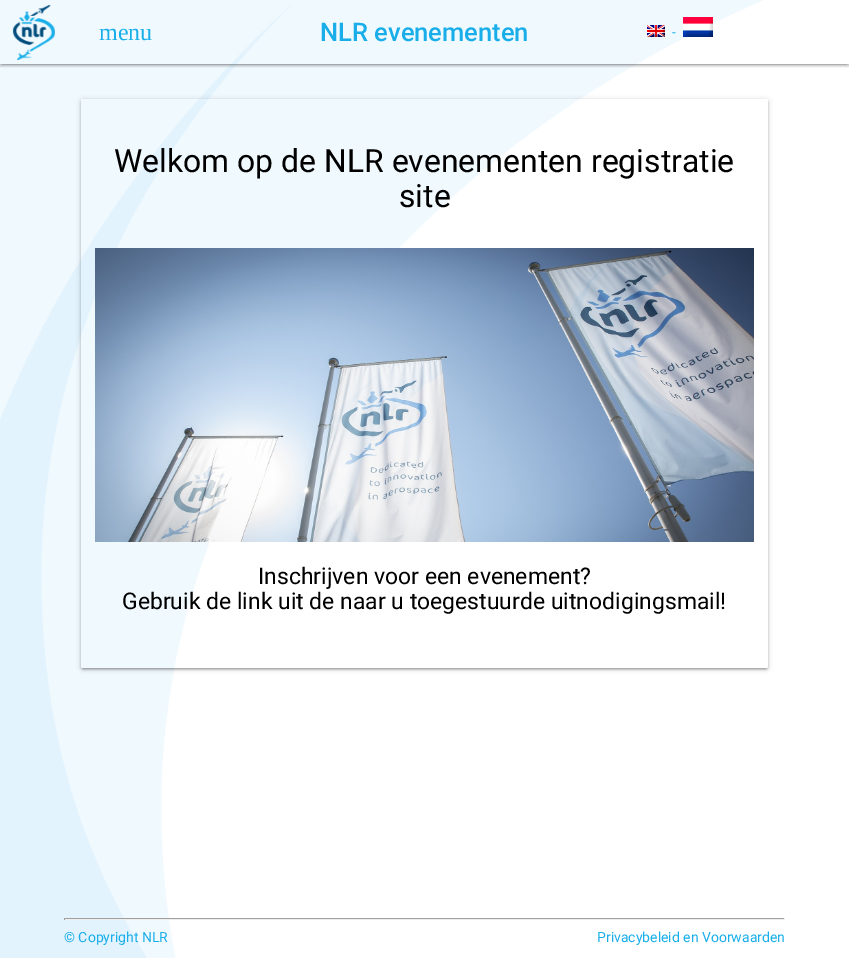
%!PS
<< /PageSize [849 958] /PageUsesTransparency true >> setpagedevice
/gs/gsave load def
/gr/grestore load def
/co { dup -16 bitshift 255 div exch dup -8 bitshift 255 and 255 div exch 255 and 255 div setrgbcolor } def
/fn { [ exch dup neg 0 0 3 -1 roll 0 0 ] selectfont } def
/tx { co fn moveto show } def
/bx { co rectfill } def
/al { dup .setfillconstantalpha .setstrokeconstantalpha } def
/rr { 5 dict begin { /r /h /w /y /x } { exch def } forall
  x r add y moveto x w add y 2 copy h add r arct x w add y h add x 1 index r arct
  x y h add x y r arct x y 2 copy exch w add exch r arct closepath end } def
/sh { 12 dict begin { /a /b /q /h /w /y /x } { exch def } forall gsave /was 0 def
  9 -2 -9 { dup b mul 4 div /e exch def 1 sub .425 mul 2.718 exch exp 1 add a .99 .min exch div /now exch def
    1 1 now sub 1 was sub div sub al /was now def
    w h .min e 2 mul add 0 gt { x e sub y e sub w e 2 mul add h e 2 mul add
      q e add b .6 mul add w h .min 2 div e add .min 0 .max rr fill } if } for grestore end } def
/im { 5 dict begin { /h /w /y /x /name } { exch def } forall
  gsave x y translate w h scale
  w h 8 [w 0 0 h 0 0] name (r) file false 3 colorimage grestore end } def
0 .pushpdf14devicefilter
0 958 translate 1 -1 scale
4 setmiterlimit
0 0 849 958 16#FFFFFF bx
(media/1.raw) 0 0 763 958 im
gs
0 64 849 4 rectclip
16#000000 co
0 1 849 64 0 2.5 .2 sh
gr
gs
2 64 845 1 rectclip
16#000000 co
2 5 845 60 0 .5 .12 sh
gr
gs
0 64 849 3 rectclip
16#000000 co
0 2 849 64 0 1 .14 sh
gr
(media/2.raw) 12 5 43 55 im
(media/3.raw) 647 25 18 12 im
(media/4.raw) 683 17 30 20 im
16#000000 co
81 100 687 569 2 2.5 .2 sh
83 104 683 565 0 .5 .12 sh
81 101 687 569 2 1 .14 sh
(media/5.raw) 81 99 687 569 im
(media/6.raw) 95 248 659 294 im
0 957 146 1 16#E3F3FD bx
64 918 721 1 16#9F9F9F bx
784 918 1 2 16#EEEEEE bx
64 919 721 1 16#EEEEEE bx
64 918 1 2 16#9F9F9F bx
(menu) 99 40 /LiberationSerif-Regular 24 16#19AEE9 tx
(NLR evenementen) 320 41 /Roboto-Medium 25.5 16#19AEE9 tx
(-) 672 37 /Roboto-Regular 14 16#19AEE9 tx
(Welkom op de NLR evenementen registratie) 114 172 /Roboto-Regular 31.9 16#000000 tx
(site) 399 207 /Roboto-Regular 31.9 16#000000 tx
(Inschrijven voor een evenement?) 258 584 /Roboto-Regular 22.95 16#000000 tx
(Gebruik de link uit de naar u toegestuurde uitnodigingsmail!) 122 609 /Roboto-Regular 22.95 16#000000 tx
(© Copyright NLR) 64 942 /Roboto-Regular 14 16#19AEE9 tx
(Privacybeleid en Voorwaarden) 597 942 /Roboto-Regular 14 16#19AEE9 tx
.poppdf14devicefilter showpage
